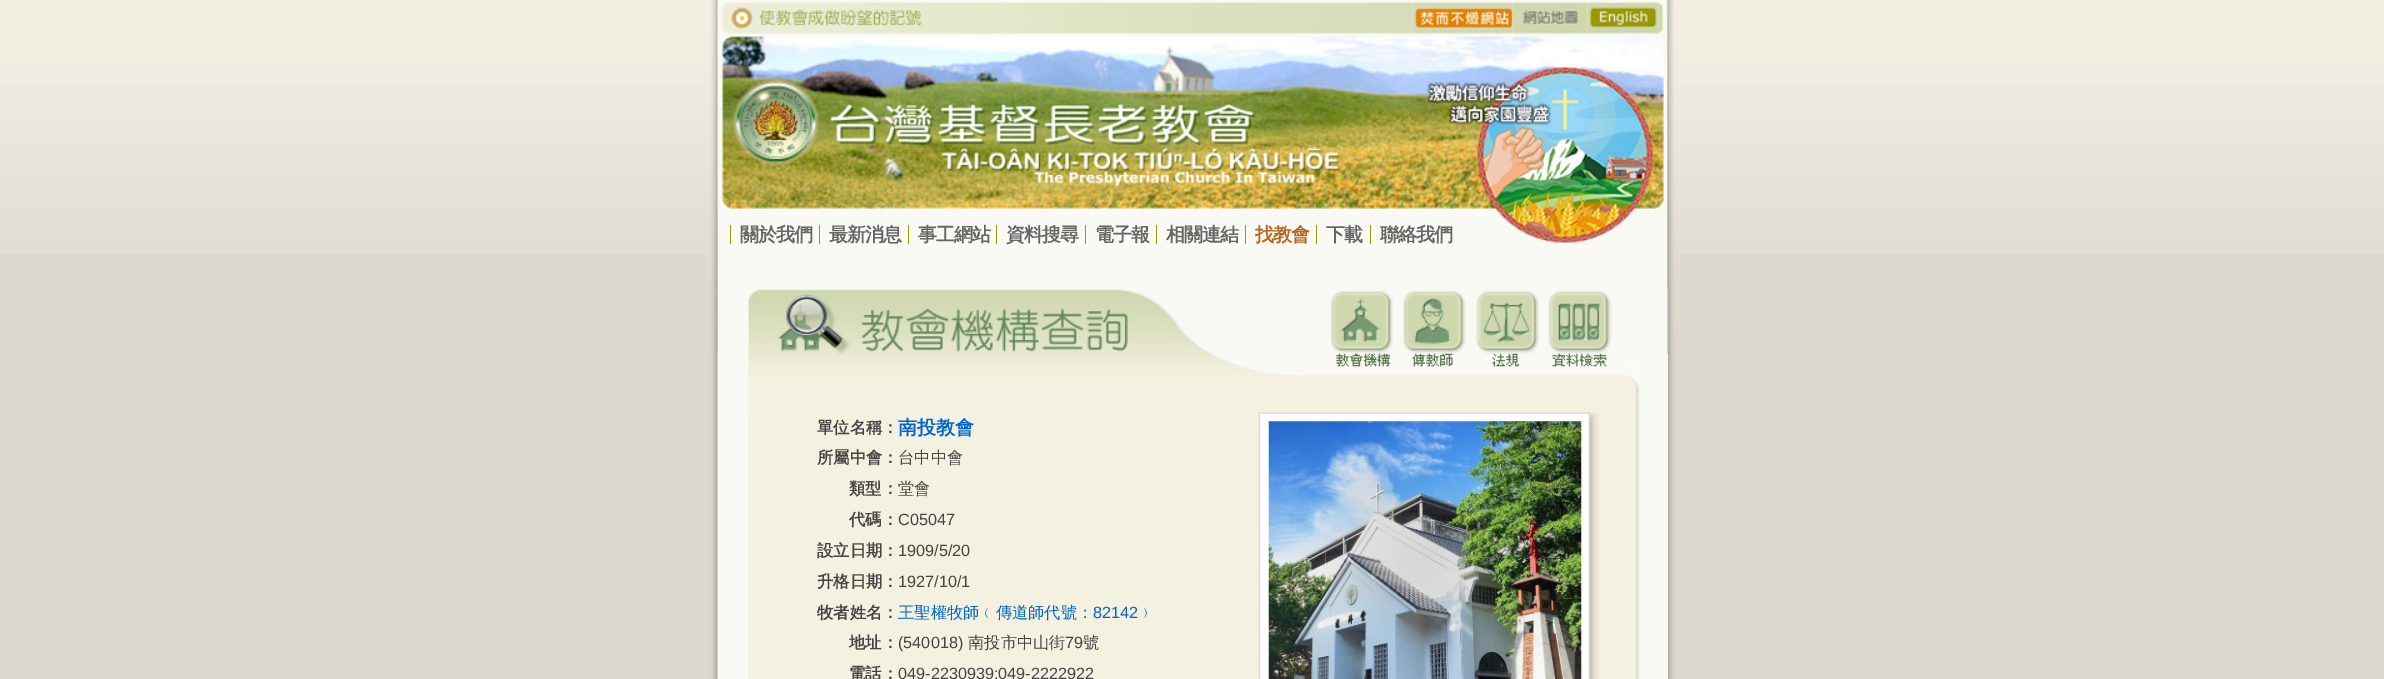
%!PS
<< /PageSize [2384 679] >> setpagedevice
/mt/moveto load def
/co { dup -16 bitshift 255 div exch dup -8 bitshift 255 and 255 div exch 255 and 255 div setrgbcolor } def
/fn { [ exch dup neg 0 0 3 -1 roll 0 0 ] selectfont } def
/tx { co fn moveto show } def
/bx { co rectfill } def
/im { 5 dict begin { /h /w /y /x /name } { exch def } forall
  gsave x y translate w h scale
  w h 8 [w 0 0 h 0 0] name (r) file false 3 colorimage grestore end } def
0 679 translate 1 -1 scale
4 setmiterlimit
0 0 2384 679 16#DDD8CE bx
(media/1.raw) 0 0 2384 254 im
717 0 951 679 16#FAFAF5 bx
(media/4.raw) 705 0 13 679 im
(media/13.raw) 717 35 948 178 im
(media/2.raw) 732 79 88 87 im
(media/3.raw) 1427 67 226 176 im
(media/6.raw) 717 0 15 35 im
(media/5.raw) 705 0 13 354 im
(media/7.raw) 731 2 275 32 im
(media/8.raw) 1006 2 407 32 im
(media/9.raw) 1412 1 101 33 im
(media/10.raw) 1512 2 76 32 im
(media/12.raw) 1658 2 6 32 im
(media/11.raw) 1587 2 72 32 im
730 225 1 19 16#999900 bx
819 225 1 19 16#999900 bx
908 225 1 19 16#999900 bx
996 225 1 19 16#999900 bx
1085 225 1 19 16#999900 bx
1156 225 1 19 16#999900 bx
1245 225 1 19 16#999900 bx
1316 225 1 19 16#999900 bx
1370 225 1 19 16#999900 bx
(media/14.raw) 1667 0 13 679 im
1667 288 1 391 16#FAFAF5 bx
(media/15.raw) 1667 0 13 354 im
(media/16.raw) 748 289 494 79 im
(media/17.raw) 1330 290 64 77 im
(media/18.raw) 1403 290 63 77 im
(media/19.raw) 1476 290 64 77 im
(media/20.raw) 1548 290 64 77 im
(media/21.raw) 747 367 893 46 im
(media/22.raw) 748 412 892 267 im
(media/23.raw) 1258 412 341 9 im
(media/24.raw) 1258 421 11 258 im
(media/26.raw) 1581 421 18 258 im
(media/25.raw) 1268 421 314 258 im
/WenQuanYiZenHei-Bold 19 fn
16#666666 co
740 241 mt -1 0 (關於我們) ashow
829 241 mt -1 0 (最新消息) ashow
918 241 mt -1 0 (事工網站) ashow
1006 241 mt -1 0 (資料搜尋) ashow
1095 241 mt -1 0 (電子報) ashow
1166 241 mt -1 0 (相關連結) ashow
16#B5651F co
1255 241 mt -1 0 (找教會) ashow
16#666666 co
1326 241 mt -1 0 (下載) ashow
1380 241 mt -1 0 (聯絡我們) ashow
(單位名稱：) 817 433 /WenQuanYiZenHei-Bold 16.25 16#454545 tx
(南投教會) 898 434 /WenQuanYiZenHei-Bold 19 16#0066CC tx
(所屬中會：) 817 463 /WenQuanYiZenHei-Bold 16.25 16#454545 tx
(台中中會) 898 463 /WenQuanYiZenHei-Medium 16.25 16#454545 tx
(類型：) 849 494 /WenQuanYiZenHei-Bold 16.25 16#454545 tx
(堂會) 898 494 /WenQuanYiZenHei-Medium 16.25 16#454545 tx
(代碼：) 849 525 /WenQuanYiZenHei-Bold 16.25 16#454545 tx
(C05047) 898 525 /LiberationSans-Regular 16.25 16#454545 tx
(設立日期：) 817 556 /WenQuanYiZenHei-Bold 16.25 16#454545 tx
(1909/5/20) 898 556 /LiberationSans-Regular 16.25 16#454545 tx
(升格日期：) 817 587 /WenQuanYiZenHei-Bold 16.25 16#454545 tx
(1927/10/1) 898 587 /LiberationSans-Regular 16.25 16#454545 tx
(牧者姓名：) 817 618 /WenQuanYiZenHei-Bold 16.25 16#454545 tx
(王聖權牧師﹙傳道師代號：) 898 618 /WenQuanYiZenHei-Medium 16.25 16#0066CC tx
(82142) 1093 618 /LiberationSans-Regular 16.25 16#0066CC tx
(﹚) 1138 618 /WenQuanYiZenHei-Medium 16.25 16#0066CC tx
(地址：) 849 648 /WenQuanYiZenHei-Bold 16.25 16#454545 tx
(\(540018\)) 898 648 /LiberationSans-Regular 16.25 16#454545 tx
(南投市中山街) 968 648 /WenQuanYiZenHei-Medium 16.25 16#454545 tx
(79) 1065 648 /LiberationSans-Regular 16.25 16#454545 tx
(號) 1083 648 /WenQuanYiZenHei-Medium 16.25 16#454545 tx
(電話：) 849 679 /WenQuanYiZenHei-Bold 16.25 16#454545 tx
(049-2230939;049-2222922) 898 679 /LiberationSans-Regular 16.25 16#454545 tx
showpage
